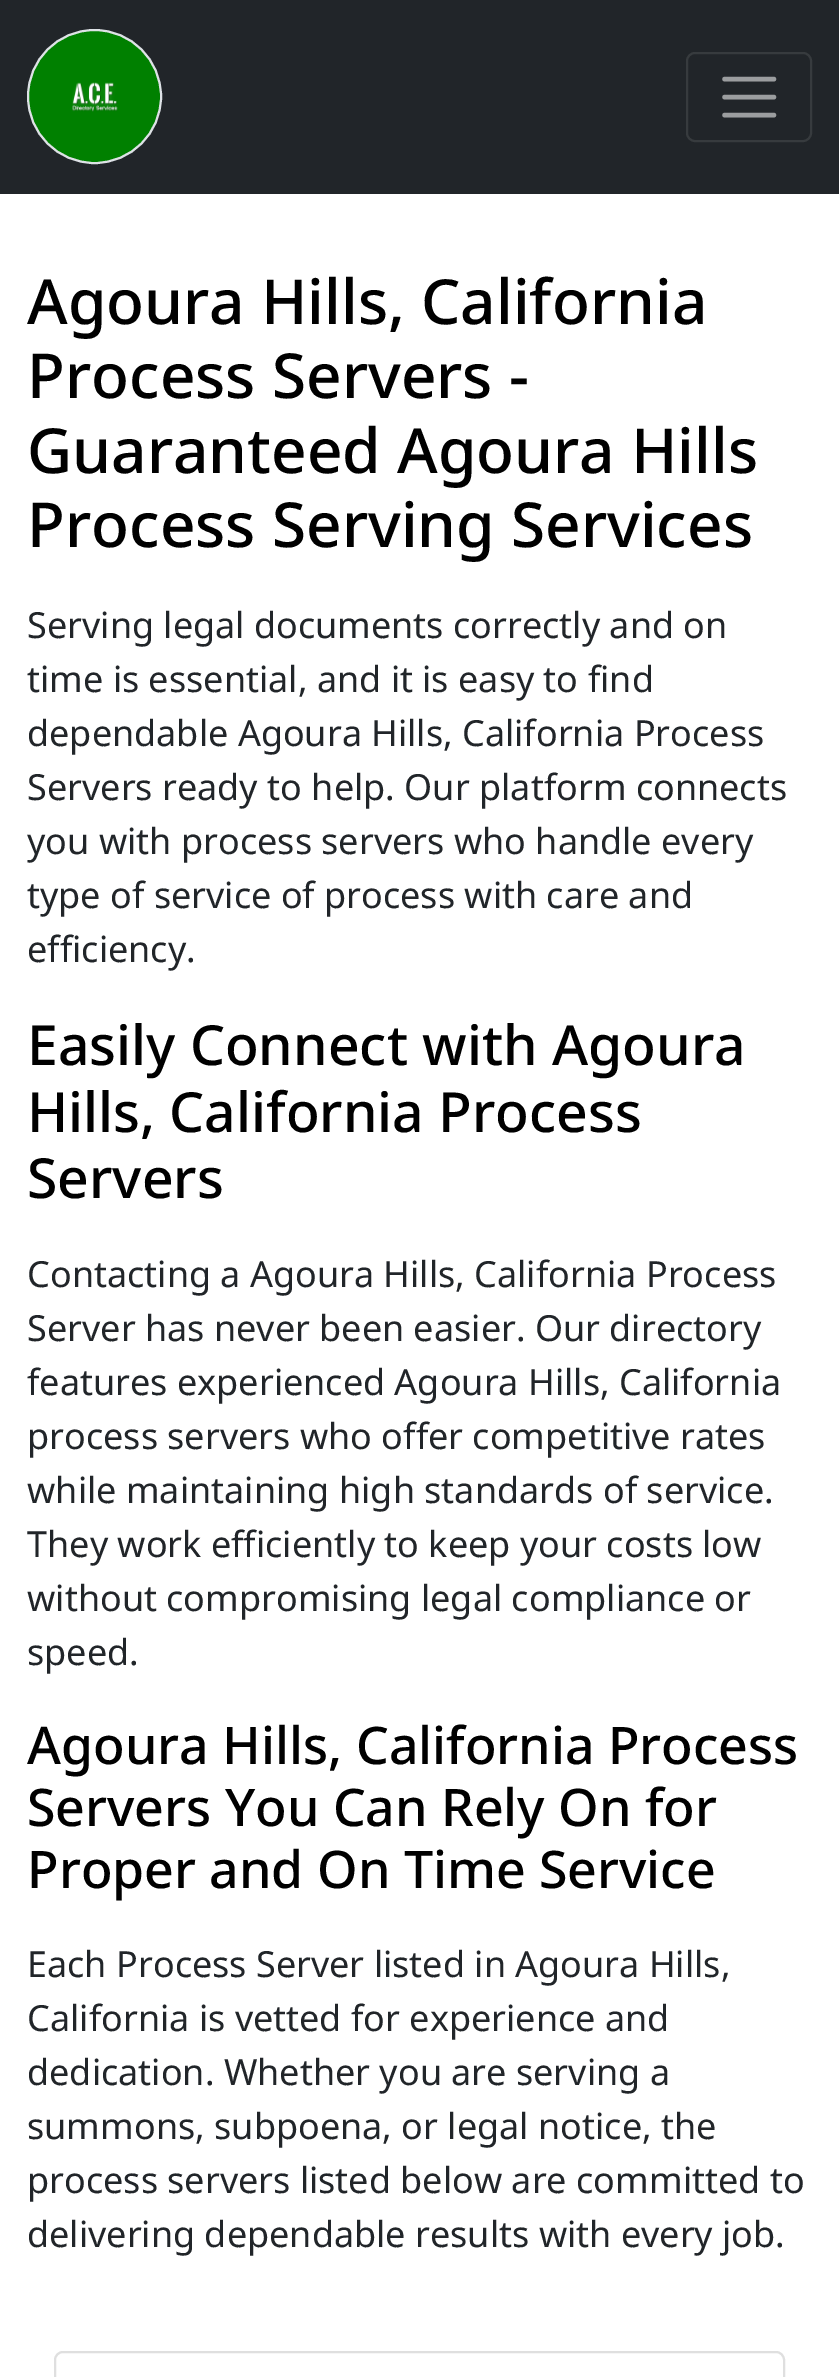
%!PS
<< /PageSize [839 2377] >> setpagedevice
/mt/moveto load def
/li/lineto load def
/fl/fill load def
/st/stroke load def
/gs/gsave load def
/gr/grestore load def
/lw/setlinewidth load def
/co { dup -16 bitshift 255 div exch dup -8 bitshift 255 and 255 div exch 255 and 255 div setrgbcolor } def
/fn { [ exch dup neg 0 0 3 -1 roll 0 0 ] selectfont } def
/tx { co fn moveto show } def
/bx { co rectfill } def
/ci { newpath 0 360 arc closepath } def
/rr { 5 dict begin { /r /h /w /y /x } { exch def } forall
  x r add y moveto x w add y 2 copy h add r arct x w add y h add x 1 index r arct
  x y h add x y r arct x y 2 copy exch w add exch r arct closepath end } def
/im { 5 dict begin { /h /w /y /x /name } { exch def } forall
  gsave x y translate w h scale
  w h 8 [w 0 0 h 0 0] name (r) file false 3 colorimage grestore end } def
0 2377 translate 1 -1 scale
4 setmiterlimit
0 0 839 2377 16#FFFFFF bx
0 0 839 194 16#212529 bx
16#008000 co
94.5 96.5 66.5 ci gs fl gr
16#DEE2E6 co
2 lw
st
(media/1.raw) 72 82 46 30 im
16#373B3E co
687 53 124 88 8 rr st
16#9B9D9F co
4.5 lw
1 setlinecap
724.5 79 mt 774 79 li 724.5 97 mt 774 97 li 724.5 115 mt 774 115 li st
16#DFDFDF co
2 lw
0 setlinecap
55 2352 729 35 8 rr st
(Agoura Hills, California) 27 324 /NotoSans-Medium 62.1 16#000000 tx
(Process Servers -) 27 398 /NotoSans-Medium 62.1 16#000000 tx
(Guaranteed Agoura Hills) 27 473 /NotoSans-Medium 62.1 16#000000 tx
(Process Serving Services) 27 547 /NotoSans-Medium 62.1 16#000000 tx
(Serving legal documents correctly and on) 27 638 /NotoSans-Regular 36 16#212529 tx
(time is essential, and it is easy to find) 27 692 /NotoSans-Regular 36 16#212529 tx
(dependable Agoura Hills, California Process) 27 746 /NotoSans-Regular 36 16#212529 tx
(Servers ready to help. Our platform connects) 27 800 /NotoSans-Regular 36 16#212529 tx
(you with process servers who handle every) 27 854 /NotoSans-Regular 36 16#212529 tx
(type of service of process with care and) 27 908 /NotoSans-Regular 36 16#212529 tx
(efficiency.) 27 962 /NotoSans-Regular 36 16#212529 tx
(Easily Connect with Agoura) 27 1065 /NotoSans-Medium 55.25 16#000000 tx
(Hills, California Process) 27 1132 /NotoSans-Medium 55.25 16#000000 tx
(Servers) 27 1198 /NotoSans-Medium 55.25 16#000000 tx
(Contacting a Agoura Hills, California Process) 27 1287 /NotoSans-Regular 36 16#212529 tx
(Server has never been easier. Our directory) 27 1341 /NotoSans-Regular 36 16#212529 tx
(features experienced Agoura Hills, California) 27 1395 /NotoSans-Regular 36 16#212529 tx
(process servers who offer competitive rates) 27 1449 /NotoSans-Regular 36 16#212529 tx
(while maintaining high standards of service.) 27 1503 /NotoSans-Regular 36 16#212529 tx
(They work efficiently to keep your costs low) 27 1557 /NotoSans-Regular 36 16#212529 tx
(without compromising legal compliance or) 27 1611 /NotoSans-Regular 36 16#212529 tx
(speed.) 27 1665 /NotoSans-Regular 36 16#212529 tx
(Agoura Hills, California Process) 27 1764 /NotoSans-Medium 51.8 16#000000 tx
(Servers You Can Rely On for) 27 1826 /NotoSans-Medium 51.8 16#000000 tx
(Proper and On Time Service) 27 1888 /NotoSans-Medium 51.8 16#000000 tx
(Each Process Server listed in Agoura Hills,) 27 1977 /NotoSans-Regular 36 16#212529 tx
(California is vetted for experience and) 27 2031 /NotoSans-Regular 36 16#212529 tx
(dedication. Whether you are serving a) 27 2085 /NotoSans-Regular 36 16#212529 tx
(summons, subpoena, or legal notice, the) 27 2139 /NotoSans-Regular 36 16#212529 tx
(process servers listed below are committed to) 27 2193 /NotoSans-Regular 36 16#212529 tx
(delivering dependable results with every job.) 27 2247 /NotoSans-Regular 36 16#212529 tx
showpage
